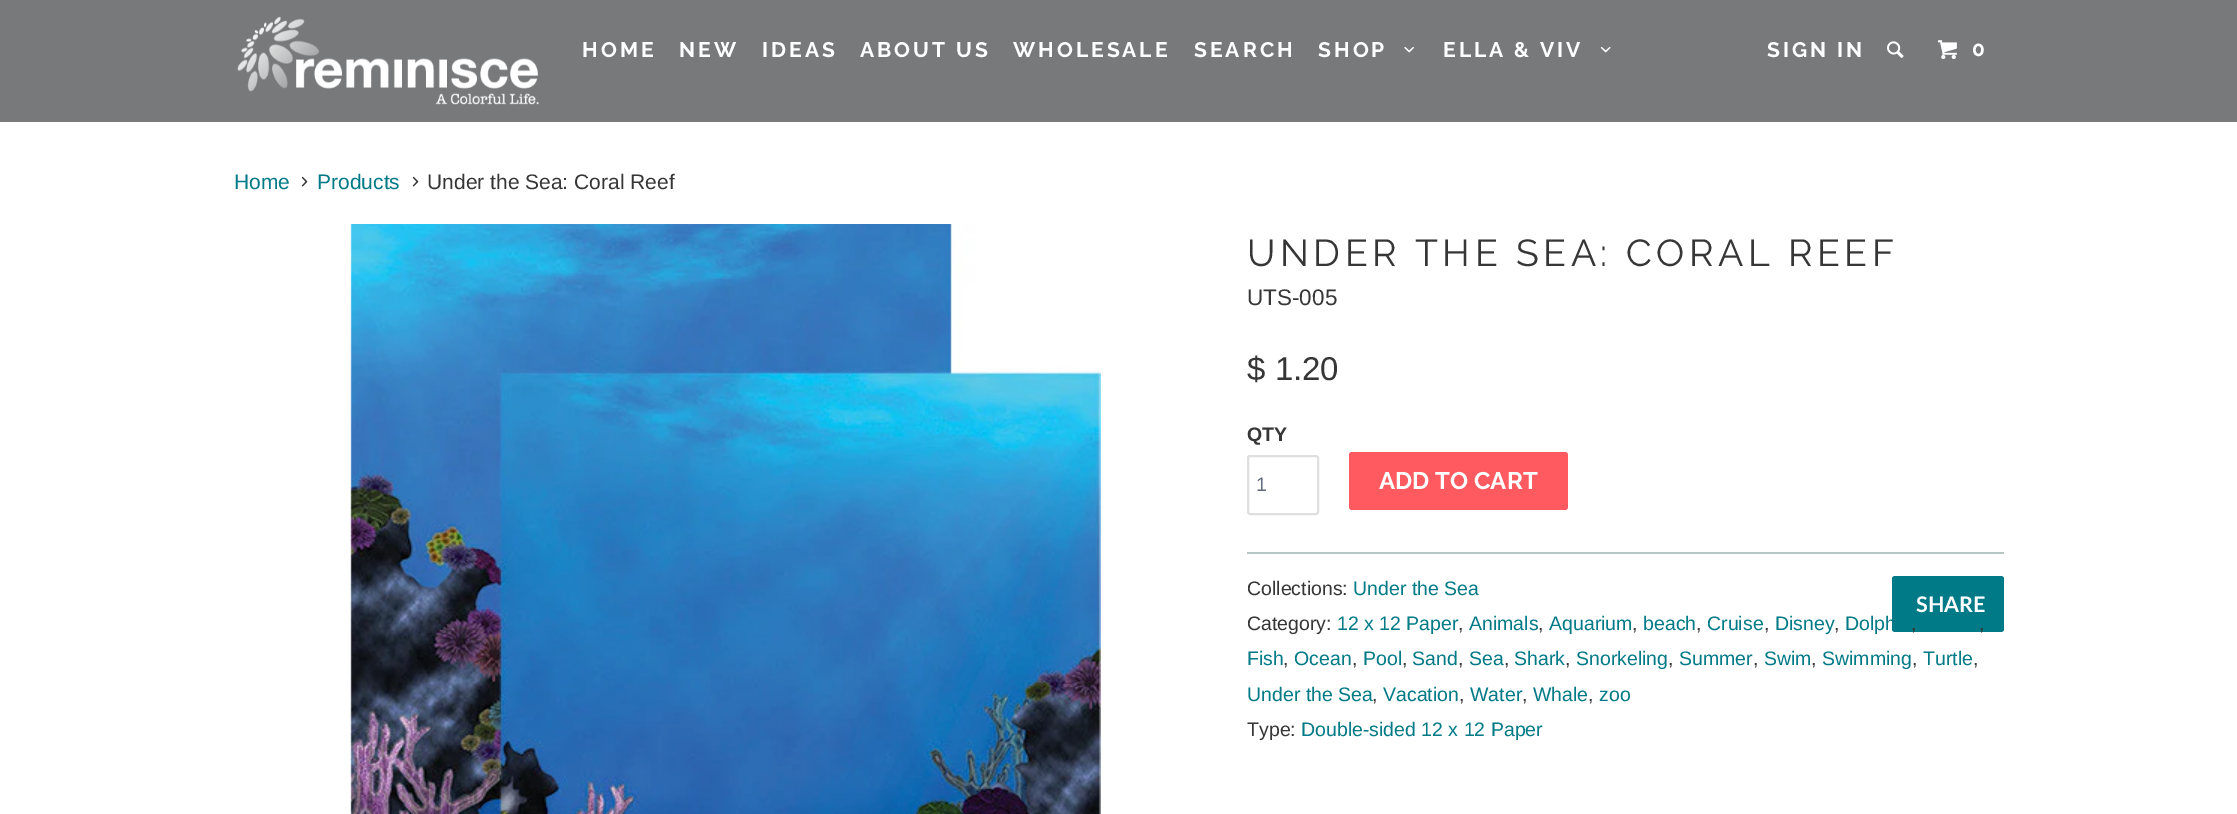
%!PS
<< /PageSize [2237 814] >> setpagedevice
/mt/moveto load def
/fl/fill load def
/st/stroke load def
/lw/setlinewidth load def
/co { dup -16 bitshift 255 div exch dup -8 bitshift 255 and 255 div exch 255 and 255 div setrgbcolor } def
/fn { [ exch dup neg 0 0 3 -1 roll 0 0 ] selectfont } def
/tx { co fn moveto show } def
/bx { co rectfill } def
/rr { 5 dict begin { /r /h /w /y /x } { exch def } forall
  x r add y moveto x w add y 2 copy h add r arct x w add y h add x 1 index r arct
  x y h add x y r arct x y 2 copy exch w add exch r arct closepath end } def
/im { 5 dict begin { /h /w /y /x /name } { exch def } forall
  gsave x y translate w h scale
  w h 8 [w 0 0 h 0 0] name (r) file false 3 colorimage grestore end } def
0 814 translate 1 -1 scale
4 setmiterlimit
0 0 2237 814 16#FFFFFF bx
0 0 2237 122 16#77797B bx
(media/1.raw) 237 16 302 89 im
(media/2.raw) 1404 46 10 7 im
(media/3.raw) 1600 46 11 7 im
(media/4.raw) 1887 41 17 17 im
(media/5.raw) 1938 40 19 20 im
(media/6.raw) 301 176 7 11 im
(media/6.raw) 412 176 7 11 im
(media/7.raw) 350 224 751 590 im
16#DFDFDF co
2 lw
1248 456 70 58 2 rr st
16#FF5A5F co
1349 452 219 58 3 rr fl
1247 552 757 2 16#B8C6C6 bx
16#007A87 co
1892 576 112 56 3 rr fl
/Raleway-Bold 21 fn
16#FFFFFF co
582 57 mt 3 0 (HOME) ashow
679 57 mt 3 0 (NEW) ashow
762 57 mt 3 0 (IDEAS) ashow
860 57 mt 3 0 (ABOUT US) ashow
1013 57 mt 3 0 (WHOLESALE) ashow
1194 57 mt 3 0 (SEARCH) ashow
1318 57 mt 3 0 (SHOP) ashow
1443 57 mt 3 0 (ELLA & VIV) ashow
1767 57 mt 3 0 (SIGN IN) ashow
1972 56 mt 3 0 (0) ashow
(Home) 234 189 /LiberationSans-Regular 21 16#007A87 tx
(Products) 317 189 /LiberationSans-Regular 21 16#007A87 tx
(Under the Sea: Coral Reef) 427 189 /LiberationSans-Regular 21 16#363636 tx
/Raleway-Regular 37.5 fn
1247 266 mt 4.5 0 (UNDER THE SEA: CORAL REEF) ashow
(UTS-005) 1247 305 /LiberationSans-Regular 22.5 16#363636 tx
($ 1.20) 1247 380 /LiberationSans-Regular 33 16#363636 tx
(QTY) 1247 441 /LiberationSans-Bold 19.5 16#363636 tx
(1) 1256 491 /LiberationSans-Regular 19.5 16#5F6A7D tx
(ADD TO CART) 1379 489 /Raleway-Bold 24 16#FFFFFF tx
(Collections:) 1247 595 /LiberationSans-Regular 19.5 16#363636 tx
(Under the Sea) 1353 595 /LiberationSans-Regular 19.5 16#007A87 tx
(SHARE) 1916 612 /Lato-Bold 21.5 16#FFFFFF tx
(Category:) 1247 630 /LiberationSans-Regular 19.5 16#363636 tx
(12 x 12 Paper) 1337 630 /LiberationSans-Regular 19.5 16#007A87 tx
(,) 1458 630 /LiberationSans-Regular 19.5 16#363636 tx
(Animals) 1469 630 /LiberationSans-Regular 19.5 16#007A87 tx
(,) 1538 630 /LiberationSans-Regular 19.5 16#363636 tx
(Aquarium) 1549 630 /LiberationSans-Regular 19.5 16#007A87 tx
(,) 1632 630 /LiberationSans-Regular 19.5 16#363636 tx
(beach) 1643 630 /LiberationSans-Regular 19.5 16#007A87 tx
(,) 1696 630 /LiberationSans-Regular 19.5 16#363636 tx
(Cruise) 1707 630 /LiberationSans-Regular 19.5 16#007A87 tx
(,) 1764 630 /LiberationSans-Regular 19.5 16#363636 tx
(Disney) 1775 630 /LiberationSans-Regular 19.5 16#007A87 tx
(,) 1834 630 /LiberationSans-Regular 19.5 16#363636 tx
(Dolph) 1845 630 /LiberationSans-Regular 19.5 16#007A87 tx
(,) 1911 630 /LiberationSans-Regular 19.5 16#363636 tx
(,) 1979 630 /LiberationSans-Regular 19.5 16#363636 tx
(Fish) 1247 665 /LiberationSans-Regular 19.5 16#007A87 tx
(,) 1283 665 /LiberationSans-Regular 19.5 16#363636 tx
(Ocean) 1294 665 /LiberationSans-Regular 19.5 16#007A87 tx
(,) 1352 665 /LiberationSans-Regular 19.5 16#363636 tx
(Pool) 1363 665 /LiberationSans-Regular 19.5 16#007A87 tx
(,) 1402 665 /LiberationSans-Regular 19.5 16#363636 tx
(Sand) 1412 665 /LiberationSans-Regular 19.5 16#007A87 tx
(,) 1458 665 /LiberationSans-Regular 19.5 16#363636 tx
(Sea) 1469 665 /LiberationSans-Regular 19.5 16#007A87 tx
(,) 1504 665 /LiberationSans-Regular 19.5 16#363636 tx
(Shark) 1514 665 /LiberationSans-Regular 19.5 16#007A87 tx
(,) 1565 665 /LiberationSans-Regular 19.5 16#363636 tx
(Snorkeling) 1576 665 /LiberationSans-Regular 19.5 16#007A87 tx
(,) 1668 665 /LiberationSans-Regular 19.5 16#363636 tx
(Summer) 1679 665 /LiberationSans-Regular 19.5 16#007A87 tx
(,) 1753 665 /LiberationSans-Regular 19.5 16#363636 tx
(Swim) 1764 665 /LiberationSans-Regular 19.5 16#007A87 tx
(,) 1811 665 /LiberationSans-Regular 19.5 16#363636 tx
(Swimming) 1822 665 /LiberationSans-Regular 19.5 16#007A87 tx
(,) 1912 665 /LiberationSans-Regular 19.5 16#363636 tx
(Turtle) 1923 665 /LiberationSans-Regular 19.5 16#007A87 tx
(,) 1973 665 /LiberationSans-Regular 19.5 16#363636 tx
(Under the Sea) 1247 701 /LiberationSans-Regular 19.5 16#007A87 tx
(,) 1372 701 /LiberationSans-Regular 19.5 16#363636 tx
(Vacation) 1383 701 /LiberationSans-Regular 19.5 16#007A87 tx
(,) 1459 701 /LiberationSans-Regular 19.5 16#363636 tx
(Water) 1470 701 /LiberationSans-Regular 19.5 16#007A87 tx
(,) 1522 701 /LiberationSans-Regular 19.5 16#363636 tx
(Whale) 1533 701 /LiberationSans-Regular 19.5 16#007A87 tx
(,) 1588 701 /LiberationSans-Regular 19.5 16#363636 tx
(zoo) 1599 701 /LiberationSans-Regular 19.5 16#007A87 tx
(Type:) 1247 736 /LiberationSans-Regular 19.5 16#363636 tx
(Double-sided 12 x 12 Paper) 1301 736 /LiberationSans-Regular 19.5 16#007A87 tx
showpage
